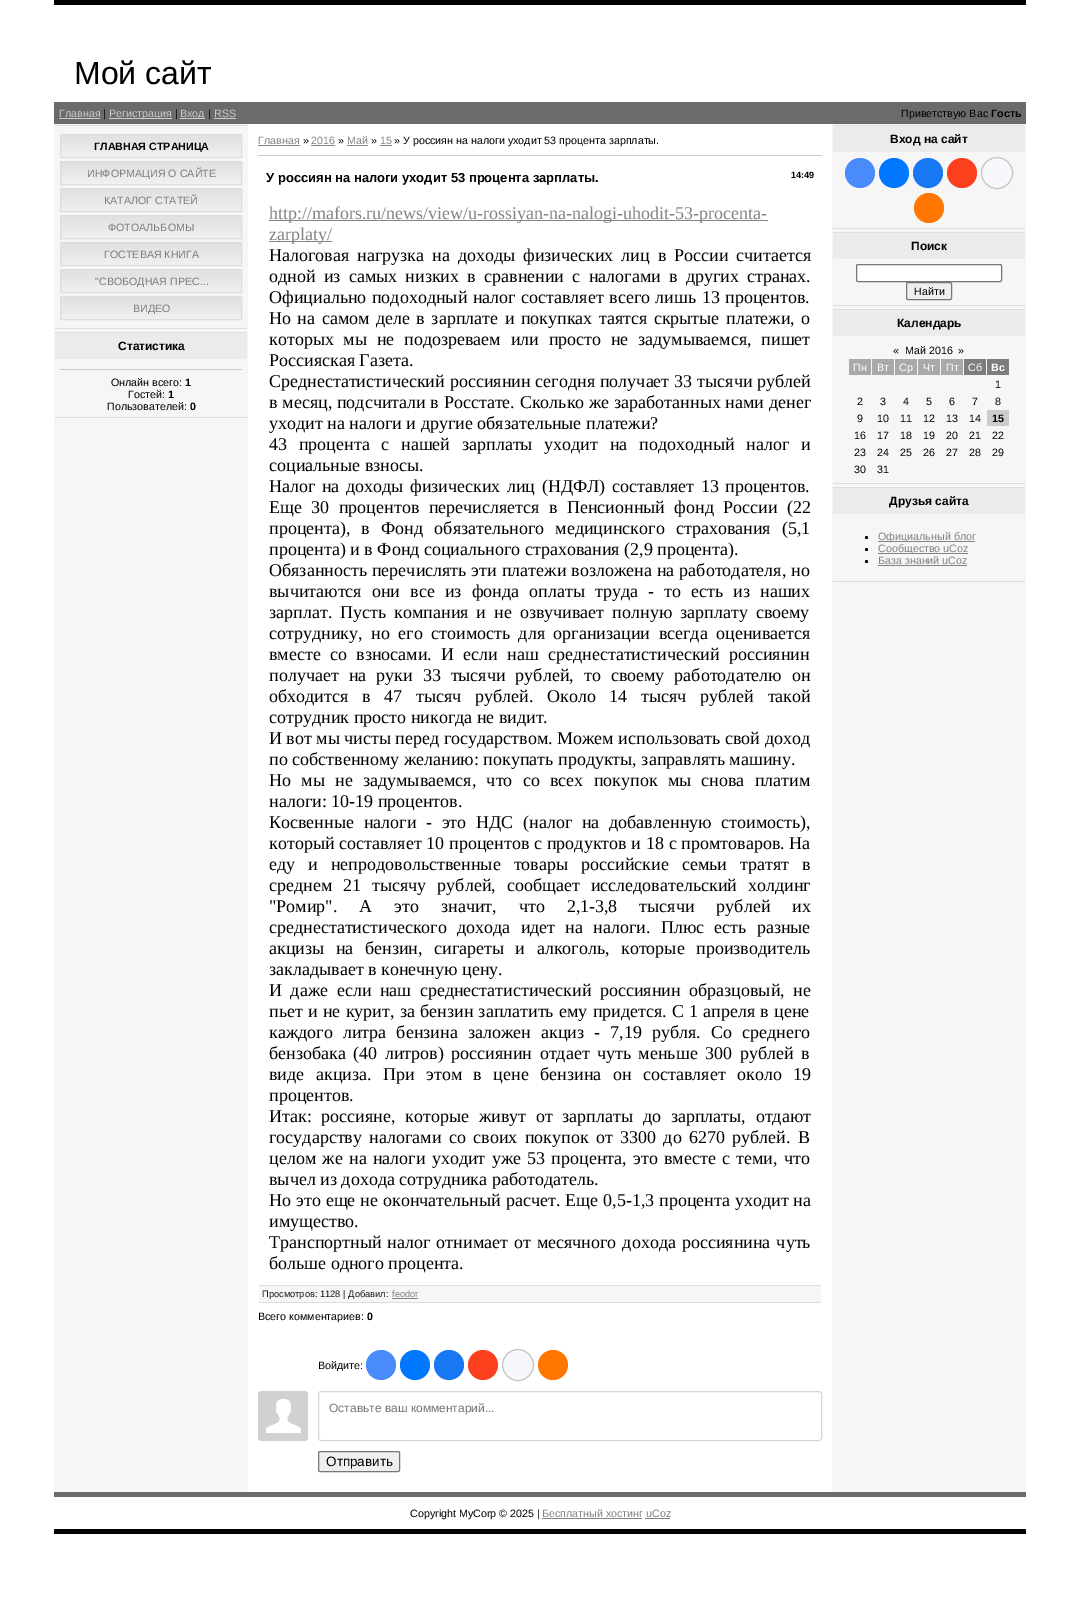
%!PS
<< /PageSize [1080 1618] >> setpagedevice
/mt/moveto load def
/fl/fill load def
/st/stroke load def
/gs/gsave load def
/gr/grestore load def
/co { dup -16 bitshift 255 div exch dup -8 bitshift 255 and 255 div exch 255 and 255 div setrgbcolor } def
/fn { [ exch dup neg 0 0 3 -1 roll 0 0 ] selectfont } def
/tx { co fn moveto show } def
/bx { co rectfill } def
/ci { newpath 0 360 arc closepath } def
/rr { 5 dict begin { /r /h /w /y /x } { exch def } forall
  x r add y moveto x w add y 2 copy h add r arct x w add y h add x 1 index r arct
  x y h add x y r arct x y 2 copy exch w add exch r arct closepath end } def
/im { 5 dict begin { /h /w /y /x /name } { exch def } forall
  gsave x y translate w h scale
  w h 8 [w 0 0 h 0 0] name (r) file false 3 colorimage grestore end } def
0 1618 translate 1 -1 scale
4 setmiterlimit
0 0 1080 1618 16#FFFFFF bx
54 0 972 5 16#000000 bx
54 102 972 22 16#6B6B6B bx
59 118 41 1 16#CCCCCC bx
109 118 63 1 16#CCCCCC bx
180 118 25 1 16#CCCCCC bx
214 118 22 1 16#CCCCCC bx
54 124 194 1368 16#F6F6F6 bx
55 125 192 1 16#DDDDDD bx
55 328 192 1 16#DDDDDD bx
(media/1.raw) 61 135 180 22 im
60.5 134.5 181 23 rectstroke
(media/1.raw) 61 162 180 22 im
60.5 161.5 181 23 rectstroke
(media/1.raw) 61 189 180 22 im
60.5 188.5 181 23 rectstroke
(media/1.raw) 61 216 180 22 im
60.5 215.5 181 23 rectstroke
(media/1.raw) 61 243 180 22 im
60.5 242.5 181 23 rectstroke
(media/1.raw) 61 270 180 22 im
60.5 269.5 181 23 rectstroke
(media/1.raw) 61 297 180 22 im
60.5 296.5 181 23 rectstroke
55 332 192 1 16#DDDDDD bx
55 417 192 1 16#DDDDDD bx
55 333 192 26 16#EBEBEB bx
60 369 182 1 16#CCCCCC bx
258 145 42 1 16#838383 bx
311 145 24 1 16#838383 bx
347 145 21 1 16#838383 bx
380 145 12 1 16#838383 bx
258 155 564 1 16#CCCCCC bx
269 220 499 1 16#838383 bx
269 241 63 1 16#838383 bx
259 1286 562 16 16#F6F6F6 bx
259 1285 562 1 16#DDDDDD bx
259 1302 562 1 16#DDDDDD bx
392 1298 26 1 16#838383 bx
16#498BFA co
381 1365 15 ci fl
16#0077FF co
415 1365 15 ci fl
16#1877F2 co
449 1365 15 ci fl
16#FC3F1D co
483 1365 15 ci fl
16#F8F8FC co
518 1365 15.5 ci gs fl gr
16#C4C4C4 co
st
16#FF7700 co
553 1365 15 ci fl
(media/2.raw) 258 1391 50 50 im
16#D6D6D6 co
318.5 1391.5 503 49 2.5 rr st
16#EFEFEF co
318.5 1451.5 81 20 1.5 rr gs fl gr
16#767676 co
st
832 124 194 1368 16#F6F6F6 bx
833 125 192 1 16#DDDDDD bx
833 228 192 1 16#DDDDDD bx
833 126 192 26 16#EBEBEB bx
16#498BFA co
860 173 15 ci fl
16#0077FF co
894 173 15 ci fl
16#1877F2 co
928 173 15 ci fl
16#FC3F1D co
962 173 15 ci fl
16#F8F8FC co
997 173 15.5 ci gs fl gr
16#C4C4C4 co
st
16#FF7700 co
929 208 15 ci fl
833 232 192 1 16#DDDDDD bx
833 305 192 1 16#DDDDDD bx
833 233 192 26 16#EBEBEB bx
16#FFFFFF co
856.5 264.5 145 17 1.5 rr gs fl gr
16#767676 co
st
16#EFEFEF co
906.5 282.5 45 17 1.5 rr gs fl gr
16#767676 co
st
833 309 192 1 16#DDDDDD bx
833 483 192 1 16#DDDDDD bx
833 310 192 26 16#EBEBEB bx
849 359 22 16 16#A9A9A9 bx
872 359 22 16 16#A9A9A9 bx
895 359 22 16 16#A9A9A9 bx
918 359 22 16 16#A9A9A9 bx
941 359 22 16 16#A9A9A9 bx
964 359 22 16 16#7D7D7D bx
987 359 22 16 16#7D7D7D bx
987 410 22 16 16#CCCCCC bx
833 487 192 1 16#DDDDDD bx
833 581 192 1 16#DDDDDD bx
833 488 192 26 16#EBEBEB bx
16#000000 co
866.5 537.5 1.5 ci fl
878 541 97 1 16#838383 bx
16#000000 co
866.5 549.5 1.5 ci fl
878 553 90 1 16#838383 bx
16#000000 co
866.5 561.5 1.5 ci fl
878 565 89 1 16#838383 bx
54 1492 972 5 16#6B6B6B bx
54 1529 972 5 16#000000 bx
542 1518 100 1 16#838383 bx
645 1518 25 1 16#838383 bx
(Мой сайт) 74 84 /LiberationSans-Regular 32 16#000000 tx
(Главная) 59 117 /LiberationSans-Regular 10.7 16#CCCCCC tx
(|) 103 117 /LiberationSans-Regular 10.7 16#000000 tx
(Регистрация) 109 117 /LiberationSans-Regular 10.7 16#CCCCCC tx
(|) 175 117 /LiberationSans-Regular 10.7 16#000000 tx
(Вход) 180 117 /LiberationSans-Regular 10.7 16#CCCCCC tx
(|) 208 117 /LiberationSans-Regular 10.7 16#000000 tx
(RSS) 214 117 /LiberationSans-Regular 10.7 16#CCCCCC tx
(Приветствую Вас) 901 117 /LiberationSans-Regular 10.7 16#000000 tx
(Гость) 991 117 /LiberationSans-Bold 10.7 16#000000 tx
(ГЛАВНАЯ СТРАНИЦА) 94 150 /LiberationSans-Bold 10.7 16#000000 tx
(ИНФОРМАЦИЯ О САЙТЕ) 87 177 /LiberationSans-Regular 10.7 16#7D7D7D tx
(КАТАЛОГ СТАТЕЙ) 104 204 /LiberationSans-Regular 10.7 16#7D7D7D tx
(ФОТОАЛЬБОМЫ) 108 231 /LiberationSans-Regular 10.7 16#7D7D7D tx
(ГОСТЕВАЯ КНИГА) 104 258 /LiberationSans-Regular 10.7 16#7D7D7D tx
("СВОБОДНАЯ ПРЕС...) 95 285 /LiberationSans-Regular 10.7 16#7D7D7D tx
(ВИДЕО) 133 312 /LiberationSans-Regular 10.7 16#7D7D7D tx
(Статистика) 118 350 /LiberationSans-Bold 12 16#000000 tx
(Онлайн всего:) 111 386 /LiberationSans-Regular 10.7 16#000000 tx
(1) 185 386 /LiberationSans-Bold 10.7 16#000000 tx
(Гостей:) 128 398 /LiberationSans-Regular 10.7 16#000000 tx
(1) 168 398 /LiberationSans-Bold 10.7 16#000000 tx
(Пользователей:) 107 410 /LiberationSans-Regular 10.7 16#000000 tx
(0) 190 410 /LiberationSans-Bold 10.7 16#000000 tx
(Главная) 258 144 /LiberationSans-Regular 10.7 16#838383 tx
(») 303 144 /LiberationSans-Regular 10.7 16#000000 tx
(2016) 311 144 /LiberationSans-Regular 10.7 16#838383 tx
(») 338 144 /LiberationSans-Regular 10.7 16#000000 tx
(Май) 347 144 /LiberationSans-Regular 10.7 16#838383 tx
(») 371 144 /LiberationSans-Regular 10.7 16#000000 tx
(15) 380 144 /LiberationSans-Regular 10.7 16#838383 tx
(» У россиян на налоги уходит 53 процента зарплаты.) 394 144 /LiberationSans-Regular 10.7 16#000000 tx
(У россиян на налоги уходит 53 процента зарплаты.) 266 182 /LiberationSans-Bold 13 16#000000 tx
(14:49) 791 178 /LiberationSans-Bold 9 16#000000 tx
(http://mafors.ru/news/view/u-rossiyan-na-nalogi-uhodit-53-procenta-) 269 219 /LiberationSerif-Regular 18 16#838383 tx
(zarplaty/) 269 240 /LiberationSerif-Regular 18 16#838383 tx
16#000000 co
269 261 mt 3.5 0 32 (Налоговая нагрузка на доходы физических лиц в России считается) widthshow
269 282 mt 3.75 0 32 (одной из самых низких в сравнении с налогами в других странах.) widthshow
269 303 mt 1 0 32 (Официально подоходный налог составляет всего лишь 13 процентов.) widthshow
269 324 mt 2 0 32 (Но на самом деле в зарплате и покупках таятся скрытые платежи, о) widthshow
269 345 mt 5.25 0 32 (которых мы не подозреваем или просто не задумываемся, пишет) widthshow
(Россияская Газета.) 269 366 /LiberationSerif-Regular 18 16#000000 tx
269 387 mt .5 0 32 (Среднестатистический россиянин сегодня получает 33 тысячи рублей) widthshow
269 408 mt .25 0 32 (в месяц, подсчитали в Росстате. Сколько же заработанных нами денег) widthshow
(уходит на налоги и другие обязательные платежи?) 269 429 /LiberationSerif-Regular 18 16#000000 tx
269 450 mt 7.25 0 32 (43 процента с нашей зарплаты уходит на подоходный налог и) widthshow
(социальные взносы.) 269 471 /LiberationSerif-Regular 18 16#000000 tx
269 492 mt 2 0 32 (Налог на доходы физических лиц \(НДФЛ\) составляет 13 процентов.) widthshow
269 513 mt 5 0 32 (Еще 30 процентов перечисляется в Пенсионный фонд России \(22) widthshow
269 534 mt 6.75 0 32 (процента\), в Фонд обязательного медицинского страхования \(5,1) widthshow
(процента\) и в Фонд социального страхования \(2,9 процента\).) 269 555 /LiberationSerif-Regular 18 16#000000 tx
269 576 mt .5 0 32 (Обязанность перечислять эти платежи возложена на работодателя, но) widthshow
269 597 mt 5.6 0 32 (вычитаются они все из фонда оплаты труда - то есть из наших) widthshow
269 618 mt 3.5 0 32 (зарплат. Пусть компания и не озвучивает полную зарплату своему) widthshow
269 639 mt 4 0 32 (сотруднику, но его стоимость для организации всегда оценивается) widthshow
269 660 mt 4.75 0 32 (вместе со взносами. И если наш среднестатистический россиянин) widthshow
269 681 mt 5.5 0 32 (получает на руки 33 тысячи рублей, то своему работодателю он) widthshow
269 702 mt 9.25 0 32 (обходится в 47 тысяч рублей. Около 14 тысяч рублей такой) widthshow
(сотрудник просто никогда не видит.) 269 723 /LiberationSerif-Regular 18 16#000000 tx
(И вот мы чисты перед государством. Можем использовать свой доход) 269 744 /LiberationSerif-Regular 18 16#000000 tx
(по собственному желанию: покупать продукты, заправлять машину.) 269 765 /LiberationSerif-Regular 18 16#000000 tx
269 786 mt 5.75 0 32 (Но мы не задумываемся, что со всех покупок мы снова платим) widthshow
(налоги: 10-19 процентов.) 269 807 /LiberationSerif-Regular 18 16#000000 tx
269 828 mt 5.25 0 32 (Косвенные налоги - это НДС \(налог на добавленную стоимость\),) widthshow
269 849 mt .25 0 32 (который составляет 10 процентов с продуктов и 18 с промтоваров. На) widthshow
269 870 mt 8.5 0 32 (еду и непродовольственные товары российские семьи тратят в) widthshow
269 891 mt 6.5 0 32 (среднем 21 тысячу рублей, сообщает исследовательский холдинг) widthshow
269 912 mt 17.5 0 32 ("Ромир". А это значит, что 2,1-3,8 тысячи рублей их) widthshow
269 933 mt 5.75 0 32 (среднестатистического дохода идет на налоги. Плюс есть разные) widthshow
269 954 mt 7 0 32 (акцизы на бензин, сигареты и алкоголь, которые производитель) widthshow
(закладывает в конечную цену.) 269 975 /LiberationSerif-Regular 18 16#000000 tx
269 996 mt 4 0 32 (И даже если наш среднестатистический россиянин образцовый, не) widthshow
269 1017 mt .75 0 32 (пьет и не курит, за бензин заплатить ему придется. С 1 апреля в цене) widthshow
269 1038 mt 5.6 0 32 (каждого литра бензина заложен акциз - 7,19 рубля. Со среднего) widthshow
269 1059 mt 3 0 32 (бензобака \(40 литров\) россиянин отдает чуть меньше 300 рублей в) widthshow
269 1080 mt 7 0 32 (виде акциза. При этом в цене бензина он составляет около 19) widthshow
(процентов.) 269 1101 /LiberationSerif-Regular 18 16#000000 tx
269 1122 mt 5.25 0 32 (Итак: россияне, которые живут от зарплаты до зарплаты, отдают) widthshow
269 1143 mt 2.9 0 32 (государству налогами со своих покупок от 3300 до 6270 рублей. В) widthshow
269 1164 mt 1.75 0 32 (целом же на налоги уходит уже 53 процента, это вместе с теми, что) widthshow
(вычел из дохода сотрудника работодатель.) 269 1185 /LiberationSerif-Regular 18 16#000000 tx
269 1206 mt .5 0 32 (Но это еще не окончательный расчет. Еще 0,5-1,3 процента уходит на) widthshow
(имущество.) 269 1227 /LiberationSerif-Regular 18 16#000000 tx
269 1248 mt 1.5 0 32 (Транспортный налог отнимает от месячного дохода россиянина чуть) widthshow
(больше одного процента.) 269 1269 /LiberationSerif-Regular 18 16#000000 tx
(Просмотров: 1128 | Добавил:) 262 1297 /LiberationSans-Regular 9.3 16#1A1A1A tx
(feodor) 392 1297 /LiberationSans-Regular 9.3 16#838383 tx
(Всего комментариев:) 258 1320 /LiberationSans-Regular 10.7 16#000000 tx
(0) 367 1320 /LiberationSans-Bold 10.7 16#000000 tx
(Войдите:) 318 1369 /LiberationSans-Regular 10.7 16#000000 tx
(Оставьте ваш комментарий...) 329 1412 /LiberationSans-Regular 12 16#757575 tx
(Отправить) 326 1466 /LiberationSans-Regular 13.5 16#000000 tx
(Вход на сайт) 890 143 /LiberationSans-Bold 12 16#000000 tx
(Поиск) 911 250 /LiberationSans-Bold 12 16#000000 tx
(Найти) 914 295 /LiberationSans-Regular 10.7 16#000000 tx
(Календарь) 897 327 /LiberationSans-Bold 12 16#000000 tx
(«) 893 354 /LiberationSans-Regular 10.7 16#000000 tx
(Май 2016) 905 354 /LiberationSans-Regular 10.7 16#000000 tx
(») 958 354 /LiberationSans-Regular 10.7 16#000000 tx
(Пн) 853 371 /LiberationSans-Regular 10.7 16#FFFFFF tx
(Вт) 877 371 /LiberationSans-Regular 10.7 16#FFFFFF tx
(Ср) 899 371 /LiberationSans-Regular 10.7 16#FFFFFF tx
(Чт) 923 371 /LiberationSans-Regular 10.7 16#FFFFFF tx
(Пт) 946 371 /LiberationSans-Regular 10.7 16#FFFFFF tx
(Сб) 968 371 /LiberationSans-Regular 10.7 16#FFFFFF tx
(Вс) 991 371 /LiberationSans-Bold 10.7 16#FFFFFF tx
(1) 995 388 /LiberationSans-Regular 10.7 16#000000 tx
(2) 857 405 /LiberationSans-Regular 10.7 16#000000 tx
(3) 880 405 /LiberationSans-Regular 10.7 16#000000 tx
(4) 903 405 /LiberationSans-Regular 10.7 16#000000 tx
(5) 926 405 /LiberationSans-Regular 10.7 16#000000 tx
(6) 949 405 /LiberationSans-Regular 10.7 16#000000 tx
(7) 972 405 /LiberationSans-Regular 10.7 16#000000 tx
(8) 995 405 /LiberationSans-Regular 10.7 16#000000 tx
(9) 857 422 /LiberationSans-Regular 10.7 16#000000 tx
(10) 877 422 /LiberationSans-Regular 10.7 16#000000 tx
(11) 900 422 /LiberationSans-Regular 10.7 16#000000 tx
(12) 923 422 /LiberationSans-Regular 10.7 16#000000 tx
(13) 946 422 /LiberationSans-Regular 10.7 16#000000 tx
(14) 969 422 /LiberationSans-Regular 10.7 16#000000 tx
(15) 992 422 /LiberationSans-Bold 10.7 16#000000 tx
(16) 854 439 /LiberationSans-Regular 10.7 16#000000 tx
(17) 877 439 /LiberationSans-Regular 10.7 16#000000 tx
(18) 900 439 /LiberationSans-Regular 10.7 16#000000 tx
(19) 923 439 /LiberationSans-Regular 10.7 16#000000 tx
(20) 946 439 /LiberationSans-Regular 10.7 16#000000 tx
(21) 969 439 /LiberationSans-Regular 10.7 16#000000 tx
(22) 992 439 /LiberationSans-Regular 10.7 16#000000 tx
(23) 854 456 /LiberationSans-Regular 10.7 16#000000 tx
(24) 877 456 /LiberationSans-Regular 10.7 16#000000 tx
(25) 900 456 /LiberationSans-Regular 10.7 16#000000 tx
(26) 923 456 /LiberationSans-Regular 10.7 16#000000 tx
(27) 946 456 /LiberationSans-Regular 10.7 16#000000 tx
(28) 969 456 /LiberationSans-Regular 10.7 16#000000 tx
(29) 992 456 /LiberationSans-Regular 10.7 16#000000 tx
(30) 854 473 /LiberationSans-Regular 10.7 16#000000 tx
(31) 877 473 /LiberationSans-Regular 10.7 16#000000 tx
(Друзья сайта) 889 505 /LiberationSans-Bold 12 16#000000 tx
(Официальный блог) 878 540 /LiberationSans-Regular 10.7 16#838383 tx
(Сообщество uCoz) 878 552 /LiberationSans-Regular 10.7 16#838383 tx
(База знаний uCoz) 878 564 /LiberationSans-Regular 10.7 16#838383 tx
(Copyright MyCorp © 2025 |) 410 1517 /LiberationSans-Regular 10.7 16#000000 tx
(Бесплатный хостинг uCoz) 542 1517 /LiberationSans-Regular 10.7 16#838383 tx
showpage
